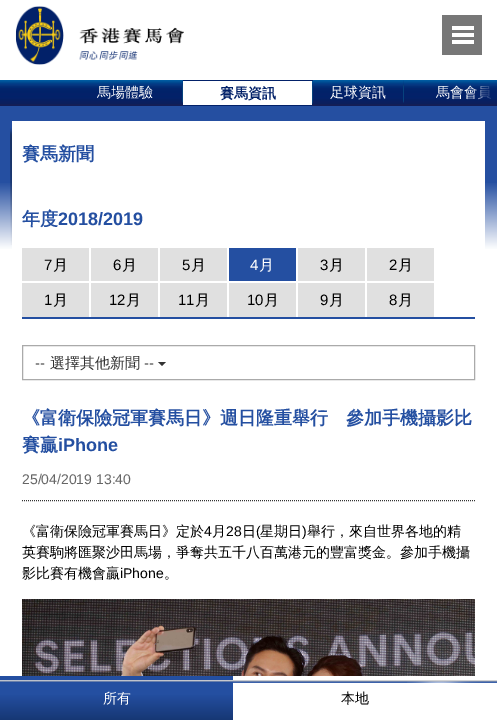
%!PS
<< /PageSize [497 726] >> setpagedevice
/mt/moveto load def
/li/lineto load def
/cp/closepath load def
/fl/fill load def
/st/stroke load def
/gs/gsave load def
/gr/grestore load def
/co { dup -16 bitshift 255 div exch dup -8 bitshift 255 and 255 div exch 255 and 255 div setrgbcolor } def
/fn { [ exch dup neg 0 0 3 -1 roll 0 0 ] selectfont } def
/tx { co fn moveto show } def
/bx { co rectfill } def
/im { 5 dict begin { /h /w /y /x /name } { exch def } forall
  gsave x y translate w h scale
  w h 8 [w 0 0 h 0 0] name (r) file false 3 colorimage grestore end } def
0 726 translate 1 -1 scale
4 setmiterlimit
0 0 497 726 16#FFFFFF bx
(media/1.raw) 0 106 497 143 im
(media/2.raw) 15 6 169 59 im
442 15 40 40 16#777777 bx
(media/3.raw) 452 26 22 18 im
(media/4.raw) 0 80 68 26 im
(media/5.raw) 68 80 115 26 im
(media/6.raw) 182 80 1 23 im
183 80 130 1 16#022169 bx
183 105 130 1 16#022169 bx
(media/7.raw) 312 81 1 25 im
(media/8.raw) 313 80 91 26 im
(media/6.raw) 403 80 1 23 im
(media/9.raw) 404 80 93 26 im
(media/11.raw) 10 128 2 117 im
12 121 473 128 16#FFFFFF bx
22 317 453 2 16#244FA1 bx
22 248 67 33 16#E0E0E0 bx
91 248 67 33 16#E0E0E0 bx
160 248 67 33 16#E0E0E0 bx
229 248 67 33 16#244FA1 bx
298 248 67 33 16#E0E0E0 bx
367 248 67 33 16#E0E0E0 bx
22 283 67 34 16#E0E0E0 bx
91 283 67 34 16#E0E0E0 bx
160 283 67 34 16#E0E0E0 bx
229 283 67 34 16#E0E0E0 bx
298 283 67 34 16#E0E0E0 bx
367 283 67 34 16#E0E0E0 bx
16#AAAAAA co
22.5 345.5 452 34 rectstroke
16#333333 co
158 362 mt 166 362 li 162 366 li cp fl
[1 1] 0 setdash
22 500.5 mt 475 500.5 li st
(media/12.raw) 22 599 453 77 im
gs 0 676 mt 233 676 li 233 720 li 0 720 li cp clip newpath
<< /ShadingType 2 /ColorSpace /DeviceRGB /Coords [117 676 117 720] /Extend [true true] /Function << /FunctionType 3 /Domain [0 1] /Functions [<< /FunctionType 2 /Domain [0 1] /C0 [.141 .31 .631] /C1 [.141 .31 .631] /N 1 >> << /FunctionType 2 /Domain [0 1] /C0 [.141 .31 .631] /C1 [.086 .216 .455] /N 1 >>] /Bounds [.41] /Encode [0 1 0 1] >> >> shfill gr
(media/13.raw) 0 680 497 3 im
(馬場體驗) 97 97 /WenQuanYiZenHei-Medium 14 16#FFFFFF tx
(賽馬資訊) 220 98 /WenQuanYiZenHei-Bold 14 16#022169 tx
(足球資訊) 330 97 /WenQuanYiZenHei-Medium 14 16#FFFFFF tx
(馬會會員) 436 97 /WenQuanYiZenHei-Medium 14 16#FFFFFF tx
(media/10.raw) 468 85 24 15 im
(賽馬新聞) 22 160 /WenQuanYiZenHei-Bold 18 16#244FA1 tx
(年度) 22 225 /WenQuanYiZenHei-Bold 18 16#244FA1 tx
(2018/2019) 58 225 /LiberationSans-Bold 18 16#244FA1 tx
(7) 44 270 /LiberationSans-Regular 15 16#000000 tx
(月) 53 270 /WenQuanYiZenHei-Medium 15 16#000000 tx
(6) 113 270 /LiberationSans-Regular 15 16#000000 tx
(月) 122 270 /WenQuanYiZenHei-Medium 15 16#000000 tx
(5) 182 270 /LiberationSans-Regular 15 16#000000 tx
(月) 191 270 /WenQuanYiZenHei-Medium 15 16#000000 tx
(4) 250 270 /LiberationSans-Regular 15 16#FFFFFF tx
(月) 259 270 /WenQuanYiZenHei-Medium 15 16#FFFFFF tx
(3) 320 270 /LiberationSans-Regular 15 16#000000 tx
(月) 329 270 /WenQuanYiZenHei-Medium 15 16#000000 tx
(2) 389 270 /LiberationSans-Regular 15 16#000000 tx
(月) 398 270 /WenQuanYiZenHei-Medium 15 16#000000 tx
(1) 44 305 /LiberationSans-Regular 15 16#000000 tx
(月) 53 305 /WenQuanYiZenHei-Medium 15 16#000000 tx
(12) 109 305 /LiberationSans-Regular 15 16#000000 tx
(月) 126 305 /WenQuanYiZenHei-Medium 15 16#000000 tx
(11) 178 305 /LiberationSans-Regular 15 16#000000 tx
(月) 195 305 /WenQuanYiZenHei-Medium 15 16#000000 tx
(10) 247 305 /LiberationSans-Regular 15 16#000000 tx
(月) 264 305 /WenQuanYiZenHei-Medium 15 16#000000 tx
(9) 320 305 /LiberationSans-Regular 15 16#000000 tx
(月) 329 305 /WenQuanYiZenHei-Medium 15 16#000000 tx
(8) 389 305 /LiberationSans-Regular 15 16#000000 tx
(月) 398 305 /WenQuanYiZenHei-Medium 15 16#000000 tx
(--) 35 368 /LiberationSans-Regular 15 16#333333 tx
(選擇其他新聞) 50 368 /WenQuanYiZenHei-Medium 15 16#333333 tx
(--) 144 368 /LiberationSans-Regular 15 16#333333 tx
(《富衛保險冠軍賽馬日》週日隆重舉行　參加手機攝影比) 22 424 /WenQuanYiZenHei-Bold 18 16#244FA1 tx
(賽贏) 22 451 /WenQuanYiZenHei-Bold 18 16#244FA1 tx
(iPhone) 58 451 /LiberationSans-Bold 18 16#244FA1 tx
(25/04/2019 13:40) 22 484 /LiberationSans-Regular 14 16#666666 tx
(《富衛保險冠軍賽馬日》定於) 22 536 /WenQuanYiZenHei-Medium 14 16#000000 tx
(4) 204 536 /LiberationSans-Regular 14 16#000000 tx
(月) 212 536 /WenQuanYiZenHei-Medium 14 16#000000 tx
(28) 226 536 /LiberationSans-Regular 14 16#000000 tx
(日) 242 536 /WenQuanYiZenHei-Medium 14 16#000000 tx
(\() 256 536 /LiberationSans-Regular 14 16#000000 tx
(星期日) 260 536 /WenQuanYiZenHei-Medium 14 16#000000 tx
(\)) 302 536 /LiberationSans-Regular 14 16#000000 tx
(舉行，來自世界各地的精) 307 536 /WenQuanYiZenHei-Medium 14 16#000000 tx
(英賽駒將匯聚沙田馬場，爭奪共五千八百萬港元的豐富獎金。參加手機攝) 22 557 /WenQuanYiZenHei-Medium 14 16#000000 tx
(影比賽有機會贏) 22 578 /WenQuanYiZenHei-Medium 14 16#000000 tx
(iPhone) 120 578 /LiberationSans-Regular 14 16#000000 tx
(。) 164 578 /WenQuanYiZenHei-Medium 14 16#000000 tx
(所有) 103 703 /WenQuanYiZenHei-Medium 14 16#FFFFFF tx
(本地) 341 703 /WenQuanYiZenHei-Medium 14 16#000000 tx
showpage
